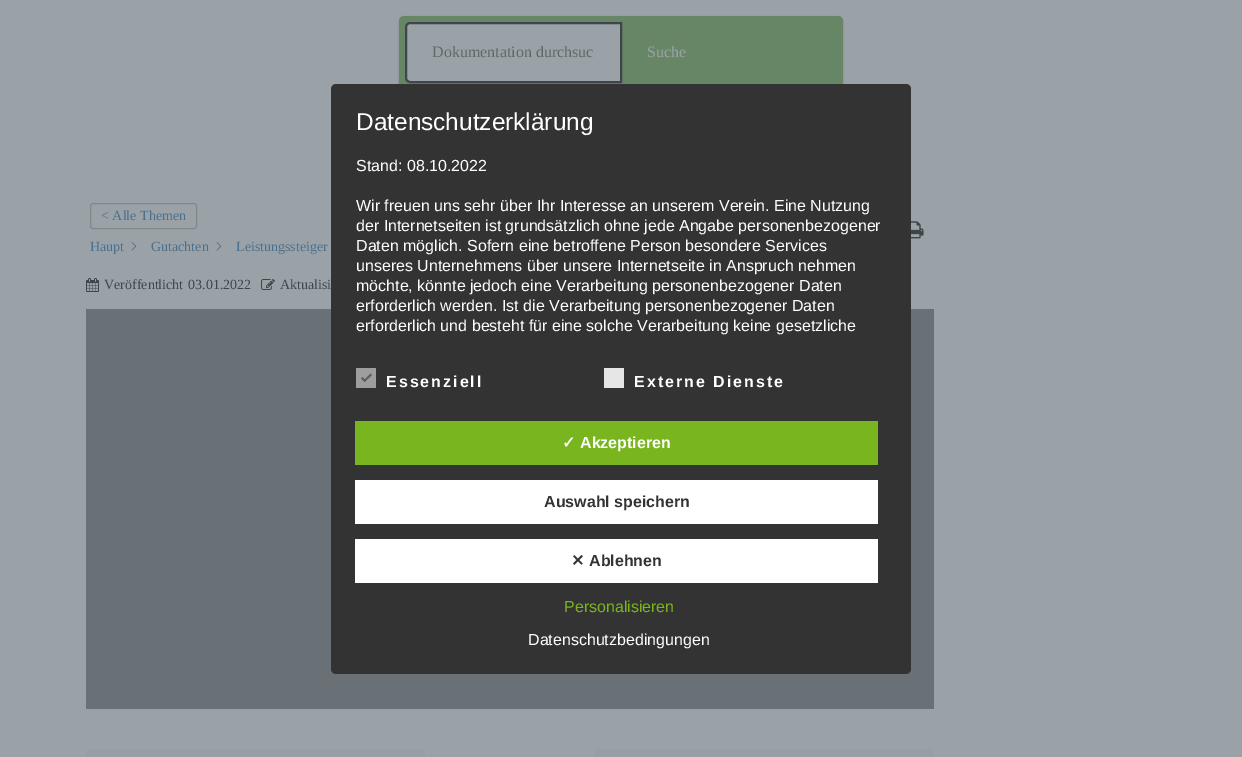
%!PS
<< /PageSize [1242 757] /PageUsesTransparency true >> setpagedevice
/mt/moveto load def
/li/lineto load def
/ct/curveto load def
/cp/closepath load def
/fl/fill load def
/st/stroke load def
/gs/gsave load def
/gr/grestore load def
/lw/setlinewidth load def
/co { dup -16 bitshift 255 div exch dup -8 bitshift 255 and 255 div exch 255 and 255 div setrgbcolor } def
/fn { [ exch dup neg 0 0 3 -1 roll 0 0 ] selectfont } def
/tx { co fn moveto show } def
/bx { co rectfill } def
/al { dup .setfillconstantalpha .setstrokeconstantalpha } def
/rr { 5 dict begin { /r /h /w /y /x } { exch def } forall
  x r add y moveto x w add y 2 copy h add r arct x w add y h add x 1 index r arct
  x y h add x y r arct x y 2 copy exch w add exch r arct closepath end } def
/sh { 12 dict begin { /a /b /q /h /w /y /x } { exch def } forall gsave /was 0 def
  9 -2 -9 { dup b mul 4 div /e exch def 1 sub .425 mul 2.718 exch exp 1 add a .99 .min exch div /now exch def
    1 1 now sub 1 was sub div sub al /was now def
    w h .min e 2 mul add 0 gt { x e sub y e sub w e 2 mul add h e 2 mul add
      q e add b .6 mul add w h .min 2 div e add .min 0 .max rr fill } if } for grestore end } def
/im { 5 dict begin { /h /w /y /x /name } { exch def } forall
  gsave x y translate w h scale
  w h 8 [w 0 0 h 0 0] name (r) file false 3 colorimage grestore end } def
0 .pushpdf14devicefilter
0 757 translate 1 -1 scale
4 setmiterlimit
0 0 1242 757 16#9BA2A7 bx
16#3F464B co
399 17 444 73 5 1 .32 sh
16#678666 co
399 16 444 73 5 rr fl
16#9BA2A7 co
410 23 mt 621 23 li 621 82 li 410 82 li 408 82 406 80 406 78 ct 406 27 li 406 25 408 23 410 23 ct cp gs fl gr
16#3F464B co
2 lw
st
16#80888C co
1 lw
90.5 203.5 106 25 2.5 rr st
(media/1.raw) 131 242 6 9 im
(media/1.raw) 216 242 6 9 im
(media/2.raw) 911 221 13 18 im
(media/3.raw) 86 278 13 14 im
(media/4.raw) 261 279 14 11 im
86 309 848 400 16#6A7176 bx
16#989FA4 co
86 749 339 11 3 rr fl
595 749 339 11 3 rr fl
(Dokumentation durchsuc) 432 57 /LiberationSerif-Regular 16 16#60686C tx
(Suche) 647 57 /LiberationSerif-Regular 16 16#9BA2A7 tx
(< Alle Themen) 101 220 /LiberationSerif-Regular 14 16#4A708F tx
(Haupt) 90 251 /LiberationSerif-Regular 14 16#4A708F tx
(Gutachten) 151 251 /LiberationSerif-Regular 14 16#4A708F tx
(Leistungssteiger) 236 251 /LiberationSerif-Regular 14 16#4A708F tx
(Veröffentlicht) 104 289 /LiberationSerif-Regular 14 16#3F464B tx
(03.01.2022) 188 289 /LiberationSerif-Regular 14 16#3F464B tx
(Aktualisi) 280 289 /LiberationSerif-Regular 14 16#3F464B tx
16#333333 co
331 84 580 590 5 rr fl
(Datenschutzerklärung) 356 130 /LiberationSans-Regular 24.4 16#FFFFFF tx
(Stand: 08.10.2022) 356 171 /LiberationSans-Regular 16 16#FFFFFF tx
(Wir freuen uns sehr über Ihr Interesse an unserem Verein. Eine Nutzung) 356 211 /LiberationSans-Regular 16 16#FFFFFF tx
(der Internetseiten ist grundsätzlich ohne jede Angabe personenbezogener) 356 231 /LiberationSans-Regular 16 16#FFFFFF tx
(Daten möglich. Sofern eine betroffene Person besondere Services) 356 251 /LiberationSans-Regular 16 16#FFFFFF tx
(unseres Unternehmens über unsere Internetseite in Anspruch nehmen) 356 271 /LiberationSans-Regular 16 16#FFFFFF tx
(möchte, könnte jedoch eine Verarbeitung personenbezogener Daten) 356 291 /LiberationSans-Regular 16 16#FFFFFF tx
(erforderlich werden. Ist die Verarbeitung personenbezogener Daten) 356 311 /LiberationSans-Regular 16 16#FFFFFF tx
(erforderlich und besteht für eine solche Verarbeitung keine gesetzliche) 356 331 /LiberationSans-Regular 16 16#FFFFFF tx
356 368 20 20 16#9E9E9E bx
16#5E5E5E co
370.5 373.5 mt 372 375 li 364.5 382 li 363.5 380.5 li cp fl
362.5 377 mt 366 380.5 li 364.5 382 li 361 378.5 li cp fl
/LiberationSans-Bold 16 fn
16#FFFFFF co
386 387 mt 2 0 (Essenziell) ashow
604 368 20 20 16#E6E6E6 bx
16#FFFFFF co
634 387 mt 2 0 (Externe Dienste) ashow
355 421 523 44 16#79B51F bx
(✓) 562 448 /DejaVuSans-Bold 16 16#FFFFFF tx
(Akzeptieren) 580 448 /LiberationSans-Bold 16 16#FFFFFF tx
355 480 523 44 16#FFFFFF bx
(Auswahl speichern) 544 507 /LiberationSans-Bold 16 16#333333 tx
355 539 523 44 16#FFFFFF bx
(✕) 571 566 /DejaVuSans-Bold 16 16#333333 tx
(Ablehnen) 589 566 /LiberationSans-Bold 16 16#333333 tx
(Personalisieren) 564 612 /LiberationSans-Regular 16 16#79B51F tx
(Datenschutzbedingungen) 528 645 /LiberationSans-Regular 16 16#FFFFFF tx
.poppdf14devicefilter showpage
